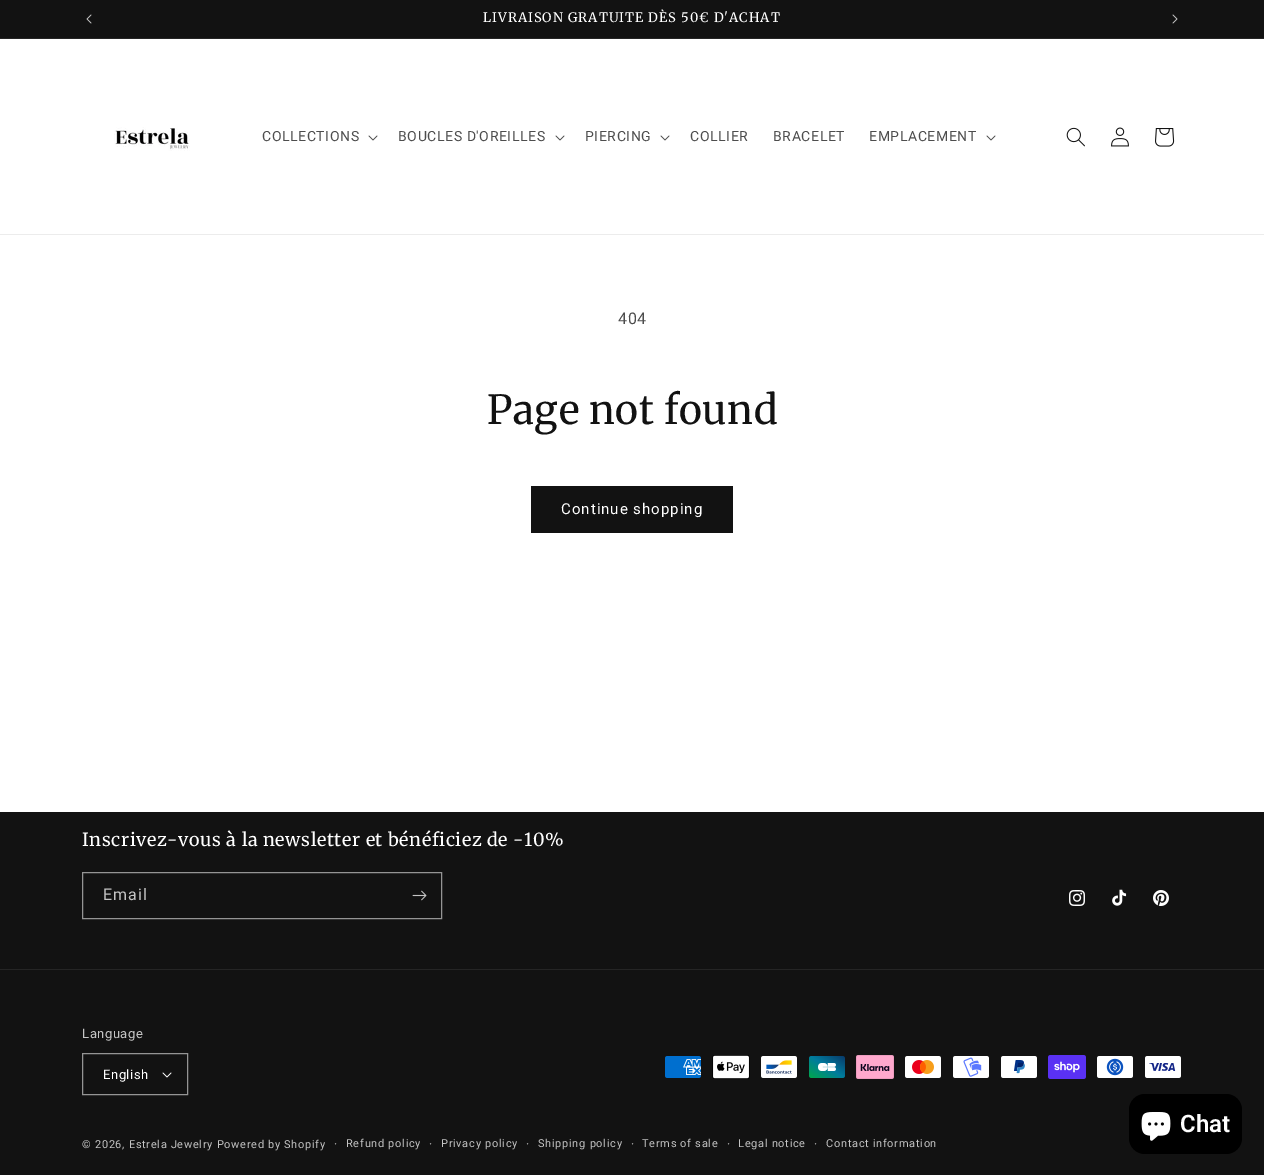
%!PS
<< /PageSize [1264 1175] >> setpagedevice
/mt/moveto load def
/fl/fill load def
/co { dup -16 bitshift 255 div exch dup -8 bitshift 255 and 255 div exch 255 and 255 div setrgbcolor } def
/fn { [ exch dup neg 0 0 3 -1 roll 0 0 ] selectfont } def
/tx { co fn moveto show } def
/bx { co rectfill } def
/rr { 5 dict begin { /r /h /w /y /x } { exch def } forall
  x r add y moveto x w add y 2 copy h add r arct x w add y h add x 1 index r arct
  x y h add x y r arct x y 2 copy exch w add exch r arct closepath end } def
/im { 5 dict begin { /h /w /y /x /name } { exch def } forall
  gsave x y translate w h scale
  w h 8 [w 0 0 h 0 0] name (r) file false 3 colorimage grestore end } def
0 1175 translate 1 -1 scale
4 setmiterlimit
0 0 1264 1175 16#FFFFFF bx
0 0 1264 38 16#121212 bx
0 38 1264 1 16#252525 bx
(media/1.raw) 86 14 6 10 im
(media/2.raw) 1172 14 6 10 im
0 234 1264 1 16#ECECEC bx
(media/3.raw) 114 127 76 24 im
(media/4.raw) 368 135 10 6 im
(media/4.raw) 555 135 10 6 im
(media/4.raw) 660 135 10 6 im
(media/4.raw) 986 135 10 6 im
(media/5.raw) 1066 127 19 20 im
(media/6.raw) 1111 127 18 20 im
(media/7.raw) 1155 128 20 19 im
531 486 202 47 16#121212 bx
0 812 1264 363 16#121212 bx
16#949494 co
82.5 872.5 359 46 rectstroke
(media/8.raw) 412 890 15 11 im
(media/9.raw) 1069 890 16 16 im
(media/10.raw) 1112 889 15 17 im
(media/11.raw) 1153 890 16 16 im
0 969 1264 1 16#252525 bx
(media/12.raw) 162 1072 10 6 im
16#949494 co
82.5 1053.5 105 41 rectstroke
(media/13.raw) 665 1056 36 22 im
(media/14.raw) 712 1055 38 24 im
(media/15.raw) 761 1056 36 22 im
(media/16.raw) 809 1056 36 22 im
(media/17.raw) 856 1055 38 24 im
(media/18.raw) 905 1056 36 22 im
(media/19.raw) 953 1056 36 22 im
(media/20.raw) 1001 1056 36 22 im
(media/21.raw) 1048 1055 38 24 im
(media/22.raw) 1097 1056 36 22 im
(media/23.raw) 1145 1056 36 22 im
16#000000 co
1129 1094 113 60 16 rr fl
(media/24.raw) 1141 1112 30 29 im
/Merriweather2-Regular 13 fn
16#FFFFFF co
483 22 mt 1 0 (LIVRAISON GRATUITE DÈS 50€ D'ACHAT) ashow
/Roboto-Regular 14 fn
16#4D4D4D co
262 141 mt .6 0 (COLLECTIONS) ashow
398 141 mt .6 0 (BOUCLES D'OREILLES) ashow
585 141 mt .6 0 (PIERCING) ashow
690 141 mt .6 0 (COLLIER) ashow
773 141 mt .6 0 (BRACELET) ashow
869 141 mt .6 0 (EMPLACEMENT) ashow
/Roboto-Regular 16 fn
618 324 mt .6 0 (404) ashow
/Merriweather-Regular 40 fn
16#121212 co
487 424 mt .6 0 (Page not found) ashow
/Roboto-Regular 15 fn
16#FFFFFF co
561 514 mt 1 0 (Continue shopping) ashow
/Merriweather2-Regular 18 fn
82 846 mt .6 0 (Inscrivez-vous à la newsletter et bénéficiez de -10%) ashow
/Roboto-Regular 16 fn
16#C4C4C4 co
103 900 mt 1 0 (Email) ashow
/Roboto-Regular 13 fn
82 1038 mt .5 0 (Language) ashow
16#FFFFFF co
103 1079 mt .5 0 (English) ashow
/Roboto-Regular 11 fn
16#C4C4C4 co
82 1148 mt .7 0 (© 2026, Estrela Jewelry Powered by Shopify) ashow
/Roboto-Regular 12 fn
334 1148 mt .7 0 (·) ashow
/Roboto-Regular 11 fn
346 1147 mt .7 0 (Refund policy) ashow
/Roboto-Regular 12 fn
429 1148 mt .7 0 (·) ashow
/Roboto-Regular 11 fn
441 1147 mt .7 0 (Privacy policy) ashow
/Roboto-Regular 12 fn
526 1148 mt .7 0 (·) ashow
/Roboto-Regular 11 fn
538 1147 mt .7 0 (Shipping policy) ashow
/Roboto-Regular 12 fn
631 1148 mt .7 0 (·) ashow
/Roboto-Regular 11 fn
642 1147 mt .7 0 (Terms of sale) ashow
/Roboto-Regular 12 fn
727 1148 mt .7 0 (·) ashow
/Roboto-Regular 11 fn
738 1147 mt .7 0 (Legal notice) ashow
/Roboto-Regular 12 fn
814 1148 mt .7 0 (·) ashow
/Roboto-Regular 11 fn
826 1147 mt .7 0 (Contact information) ashow
(Chat) 1180 1132 /Roboto-SemiBold 24 16#FFFFFF tx
showpage
